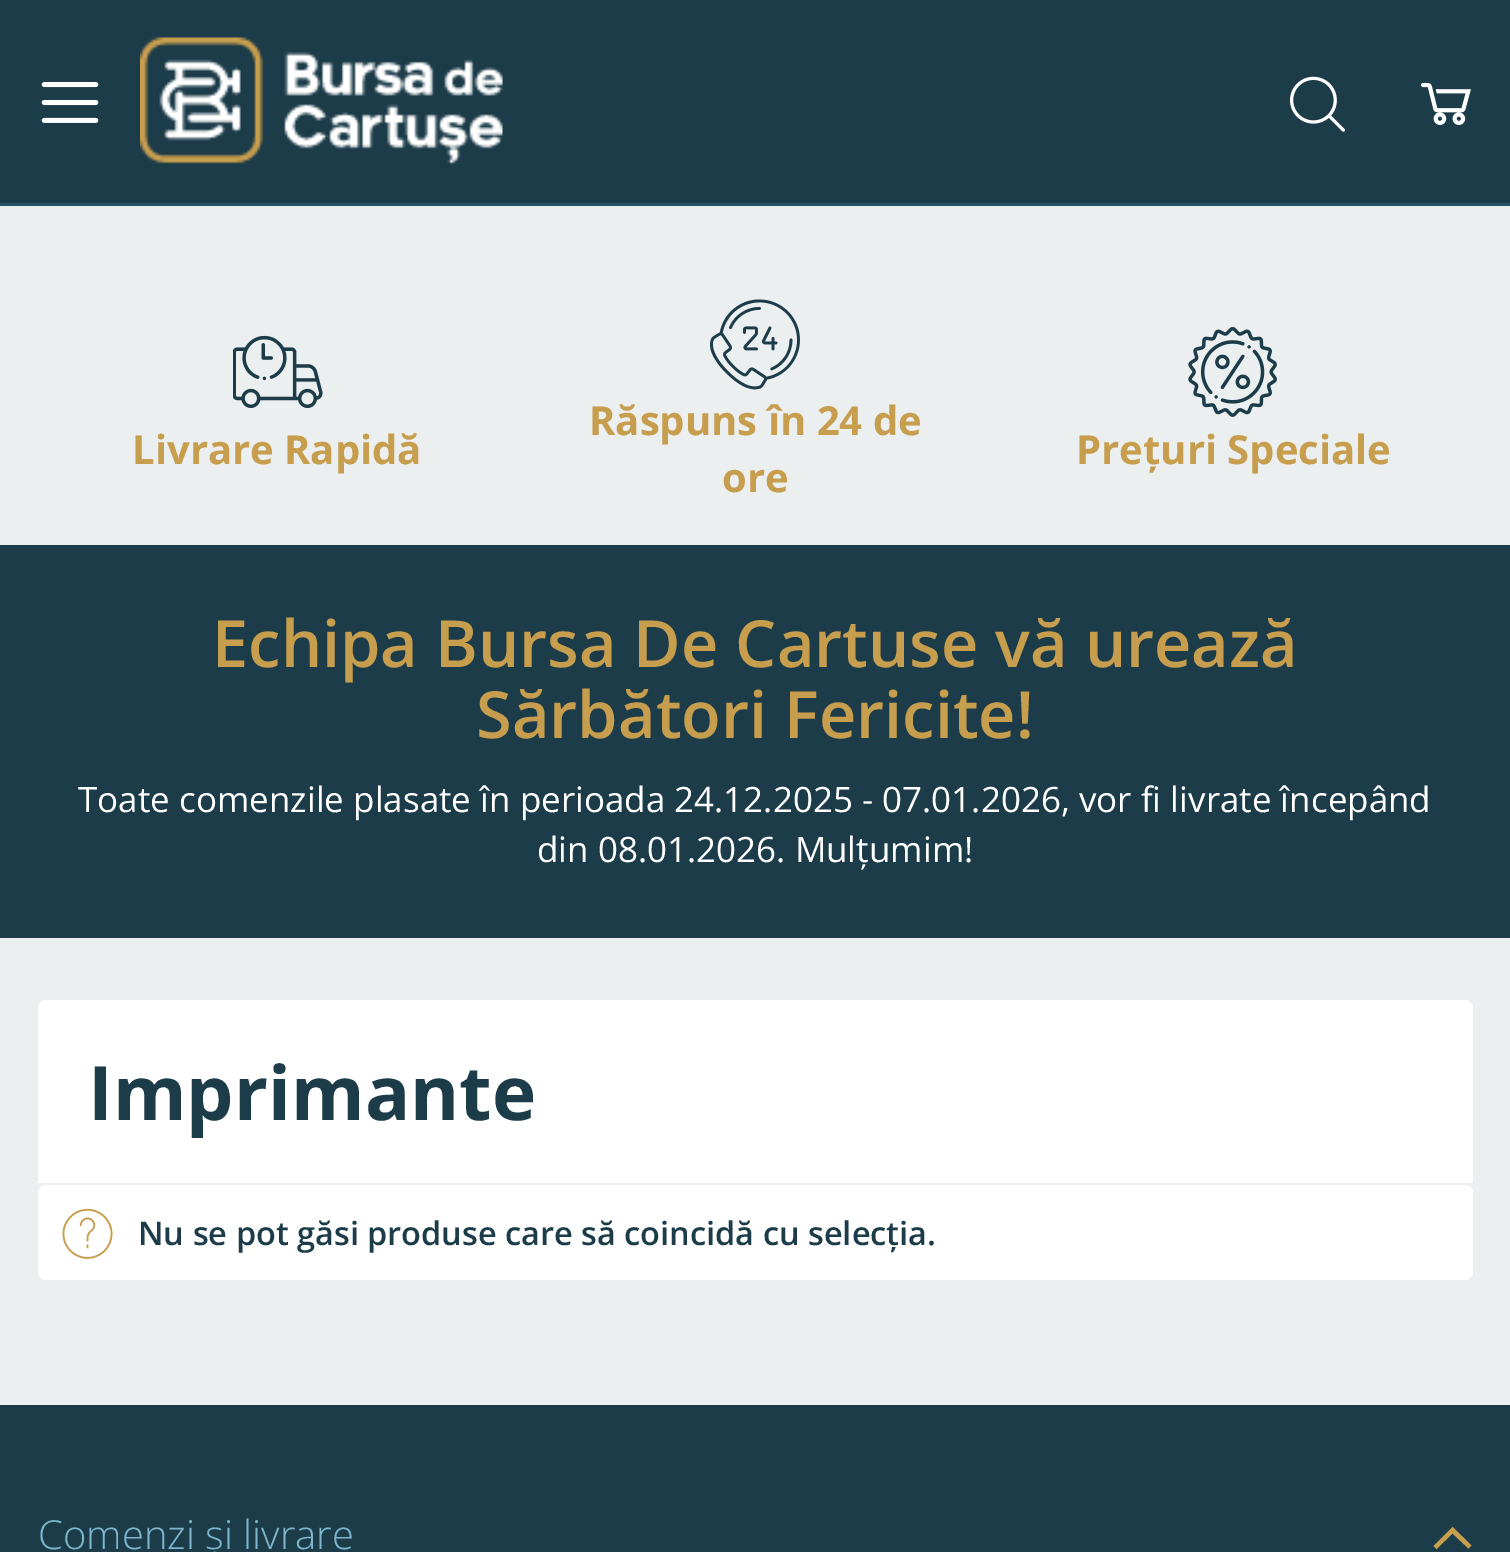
%!PS
<< /PageSize [1510 1552] >> setpagedevice
/mt/moveto load def
/li/lineto load def
/ct/curveto load def
/cp/closepath load def
/fl/fill load def
/co { dup -16 bitshift 255 div exch dup -8 bitshift 255 and 255 div exch 255 and 255 div setrgbcolor } def
/fn { [ exch dup neg 0 0 3 -1 roll 0 0 ] selectfont } def
/tx { co fn moveto show } def
/bx { co rectfill } def
/rr { 5 dict begin { /r /h /w /y /x } { exch def } forall
  x r add y moveto x w add y 2 copy h add r arct x w add y h add x 1 index r arct
  x y h add x y r arct x y 2 copy exch w add exch r arct closepath end } def
/im { 5 dict begin { /h /w /y /x /name } { exch def } forall
  gsave x y translate w h scale
  w h 8 [w 0 0 h 0 0] name (r) file false 3 colorimage grestore end } def
0 1552 translate 1 -1 scale
4 setmiterlimit
0 0 1510 1552 16#ECEFF0 bx
0 0 1510 203 16#1C3C49 bx
0 203 1510 3 16#275466 bx
(media/1.raw) 41 82 58 41 im
(media/2.raw) 140 37 363 128 im
(media/3.raw) 1290 76 55 56 im
(media/4.raw) 1421 82 50 43 im
(media/5.raw) 233 335 90 74 im
(media/6.raw) 710 299 90 91 im
(media/7.raw) 1188 327 89 90 im
0 545 1510 393 16#1C3C49 bx
16#FFFFFF co
46 1000 mt 1465 1000 li 1469.5 1000 1473 1003.5 1473 1008 ct 1473 1185 li 38 1185 li 38 1008 li 38 1003.5 41.5 1000 46 1000 ct cp fl
38 1183 1435 2 16#ECEFF0 bx
16#FFFFFF co
38 1185 1435 95 8 rr fl
(media/8.raw) 62 1208 51 51 im
0 1405 1510 147 16#1C3C49 bx
16#C79D4E co
1436.5 1549 mt 1452.5 1533.5 li 1468.5 1548.5 li 1471.5 1545.5 li 1452.5 1527 li 1433.5 1546 li cp fl
(Livrare Rapidă) 132 464 /OpenSans-Bold 40 16#C79D4E tx
(Răspuns în 24 de) 589 435 /OpenSans-Bold 40 16#C79D4E tx
(ore) 722 492 /OpenSans-Bold 40 16#C79D4E tx
(Prețuri Speciale) 1076 464 /OpenSans-Bold 40 16#C79D4E tx
(Echipa Bursa De Cartuse vă urează) 212 667 /OpenSans-SemiBold 65 16#C79D4E tx
(Sărbători Fericite!) 476 738 /OpenSans-SemiBold 65 16#C79D4E tx
(Toate comenzile plasate în perioada 24.12.2025 - 07.01.2026, vor fi livrate începând) 78 812 /OpenSans-Regular 35 16#FFFFFF tx
(din 08.01.2026. Mulțumim!) 537 862 /OpenSans-Regular 35 16#FFFFFF tx
(Imprimante) 88 1120 /OpenSans-Bold 75 16#1C3C49 tx
(Nu se pot găsi produse care să coincidă cu selecția.) 138 1245 /OpenSans-SemiBold 32.5 16#1C3C49 tx
(Comenzi și livrare) 38 1549 /OpenSans-Light 40 16#7DB6CD tx
showpage
